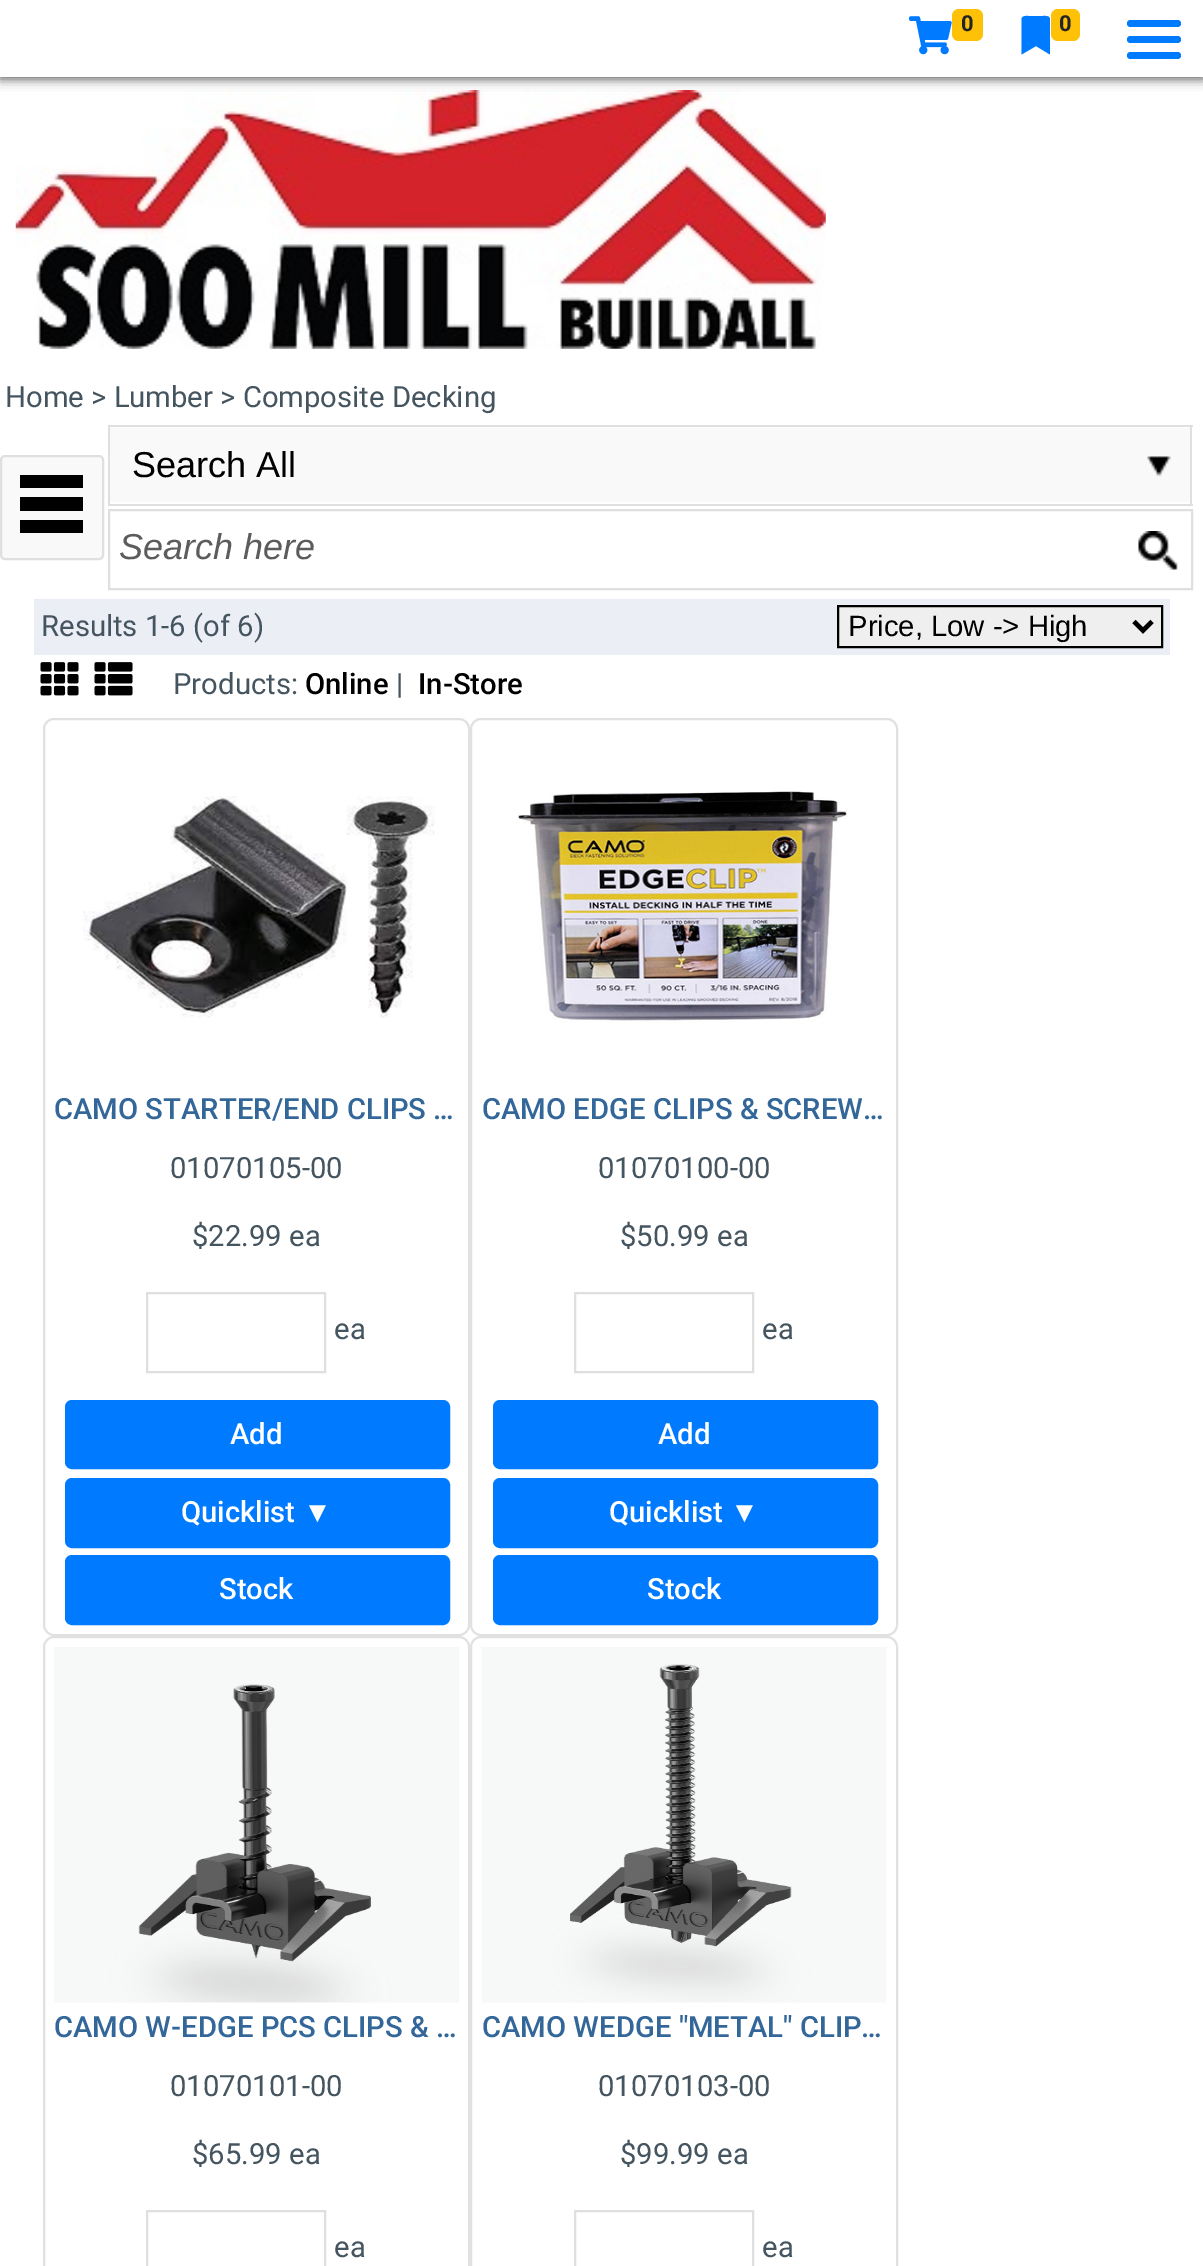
%!PS
<< /PageSize [1203 2266] /PageUsesTransparency true >> setpagedevice
/mt/moveto load def
/li/lineto load def
/ct/curveto load def
/cp/closepath load def
/fl/fill load def
/st/stroke load def
/gs/gsave load def
/gr/grestore load def
/lw/setlinewidth load def
/co { dup -16 bitshift 255 div exch dup -8 bitshift 255 and 255 div exch 255 and 255 div setrgbcolor } def
/fn { [ exch dup neg 0 0 3 -1 roll 0 0 ] selectfont } def
/tx { co fn moveto show } def
/bx { co rectfill } def
/al { dup .setfillconstantalpha .setstrokeconstantalpha } def
/rr { 5 dict begin { /r /h /w /y /x } { exch def } forall
  x r add y moveto x w add y 2 copy h add r arct x w add y h add x 1 index r arct
  x y h add x y r arct x y 2 copy exch w add exch r arct closepath end } def
/sh { 12 dict begin { /a /b /q /h /w /y /x } { exch def } forall gsave /was 0 def
  9 -2 -9 { dup b mul 4 div /e exch def 1 sub .425 mul 2.718 exch exp 1 add a .99 .min exch div /now exch def
    1 1 now sub 1 was sub div sub al /was now def
    w h .min e 2 mul add 0 gt { x e sub y e sub w e 2 mul add h e 2 mul add
      q e add b .6 mul add w h .min 2 div e add .min 0 .max rr fill } if } for grestore end } def
/im { 5 dict begin { /h /w /y /x /name } { exch def } forall
  gsave x y translate w h scale
  w h 8 [w 0 0 h 0 0] name (r) file false 3 colorimage grestore end } def
0 .pushpdf14devicefilter
0 2266 translate 1 -1 scale
4 setmiterlimit
0 0 1203 2266 16#FFFFFF bx
(media/2.raw) 15 90 811 259 im
16#555555 co
0 2 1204 77 0 5.5 1 sh
0 0 1203 77 16#FFFFFF bx
(media/1.raw) 909 16 43 39 im
16#FFC107 co
952 9 31 32 7 rr fl
16#007BFF co
1021.5 54.5 mt 1021.5 19 li 1022 15.5 1026 16 1028.5 16 ct 1043 16 li 1045.5 16 1049.5 15.5 1050 19 ct 1050 54.5 li 1036 46 li cp fl
16#FFC107 co
1051 9 29 32 7 rr fl
16#007BFF co
1127 52 54 7 3.5 rr fl
1127 20 54 7 3.5 rr fl
1127 36 54 7 3.5 rr fl
16#F9F9F9 co
1 456 102 103 4 rr gs fl gr
16#E0DFDF co
2 lw
st
16#000000 co
83 475 mt 83 488 li 20 488 li 20 475 li cp 20 497 mt 20 511 li 83 511 li 83 497 li cp 83 520 mt 20 520 li 20 533 li 83 533 li cp fl
108 425 1085 2 16#E0DFDF bx
1190 425 2 81 16#E0DFDF bx
108 504 1085 2 16#E0DFDF bx
110 428 1080 74 16#F9F9F9 bx
(media/3.raw) 1147 456 24 21 im
108 425 2 81 16#E0DFDF bx
109 510 1083 79 rectstroke
(media/4.raw) 1138 531 40 39 im
34 599 1136 56 16#ECEEF6 bx
16#EFEFEF co
838 606 mt 1162 606 li 1162 647 li 838 647 li cp gs fl gr
16#000000 co
st
4.5 lw
1134 621.5 mt 1143 630.5 li 1152 621.5 li st
(media/5.raw) 40 662 39 34 im
(media/6.raw) 94 662 39 34 im
16#E1E1E1 co
2 lw
44 719 425 916 10 rr st
(media/7.raw) 83 796 352 222 im
16#E0DFDF co
147 1293 178 79 rectstroke
16#007BFF co
66 1401 383 67 6 rr gs fl gr
st
66 1479 383 68 6 rr gs fl gr
st
66 1556 383 68 6 rr gs fl gr
st
16#E1E1E1 co
471 719 426 916 10 rr st
(media/8.raw) 517 791 331 232 im
16#E0DFDF co
575 1293 178 79 rectstroke
16#007BFF co
494 1401 383 67 6 rr gs fl gr
st
494 1479 383 68 6 rr gs fl gr
st
494 1556 383 68 6 rr gs fl gr
st
16#E1E1E1 co
44 1637 425 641 10 rr st
(media/9.raw) 54 1647 405 356 im
16#E0DFDF co
147 2211 178 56 rectstroke
16#E1E1E1 co
471 1637 426 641 10 rr st
(media/10.raw) 481 1647 406 356 im
16#E0DFDF co
575 2211 178 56 rectstroke
(0) 961 31 /Roboto-Bold 22 16#212529 tx
(0) 1059 31 /Roboto-Bold 22 16#212529 tx
(Home > Lumber > Composite Decking) 5 407 /Roboto-Regular 29.25 16#455560 tx
(Search All) 132 477 /LiberationSans-Regular 36 16#000000 tx
(Search here) 119 559 /LiberationSans-Italic 36 16#5C5C5C tx
(Results 1-6 \(of 6\)) 41 636 /Roboto-Regular 29.25 16#455560 tx
(Price, Low -> High) 848 636 /LiberationSans-Regular 29.25 16#000000 tx
(Products:) 173 694 /Roboto-Regular 29.25 16#455560 tx
(Online) 305 694 /Roboto-Medium 29.25 16#000000 tx
(|) 396 694 /Roboto-Regular 29.25 16#455560 tx
(In-Store) 418 694 /Roboto-Medium 29.25 16#000000 tx
(CAMO STARTER/END CLIPS …) 54 1119 /Roboto-Medium 29.25 16#336699 tx
(01070105-00) 170 1178 /Roboto-Regular 29.25 16#455560 tx
($22.99 ea) 192 1246 /Roboto-Regular 29.25 16#455560 tx
(ea) 334 1339 /Roboto-Regular 29.25 16#455560 tx
(Add) 230 1444 /Roboto-Medium 29.25 16#FFFFFF tx
(Quicklist) 181 1522 /Roboto-Medium 29.25 16#FFFFFF tx
(▼) 303 1522 /LiberationSans-Regular 29.25 16#FFFFFF tx
(Stock) 219 1599 /Roboto-Medium 29.25 16#FFFFFF tx
(CAMO EDGE CLIPS & SCREW…) 482 1119 /Roboto-Medium 29.25 16#336699 tx
(01070100-00) 598 1178 /Roboto-Regular 29.25 16#455560 tx
($50.99 ea) 620 1246 /Roboto-Regular 29.25 16#455560 tx
(ea) 762 1339 /Roboto-Regular 29.25 16#455560 tx
(Add) 658 1444 /Roboto-Medium 29.25 16#FFFFFF tx
(Quicklist) 609 1522 /Roboto-Medium 29.25 16#FFFFFF tx
(▼) 730 1522 /LiberationSans-Regular 29.25 16#FFFFFF tx
(Stock) 647 1599 /Roboto-Medium 29.25 16#FFFFFF tx
(CAMO W-EDGE PCS CLIPS & …) 54 2037 /Roboto-Medium 29.25 16#336699 tx
(01070101-00) 170 2096 /Roboto-Regular 29.25 16#455560 tx
($65.99 ea) 192 2164 /Roboto-Regular 29.25 16#455560 tx
(ea) 334 2257 /Roboto-Regular 29.25 16#455560 tx
(CAMO WEDGE "METAL" CLIP…) 482 2037 /Roboto-Medium 29.25 16#336699 tx
(01070103-00) 598 2096 /Roboto-Regular 29.25 16#455560 tx
($99.99 ea) 620 2164 /Roboto-Regular 29.25 16#455560 tx
(ea) 762 2257 /Roboto-Regular 29.25 16#455560 tx
.poppdf14devicefilter showpage
